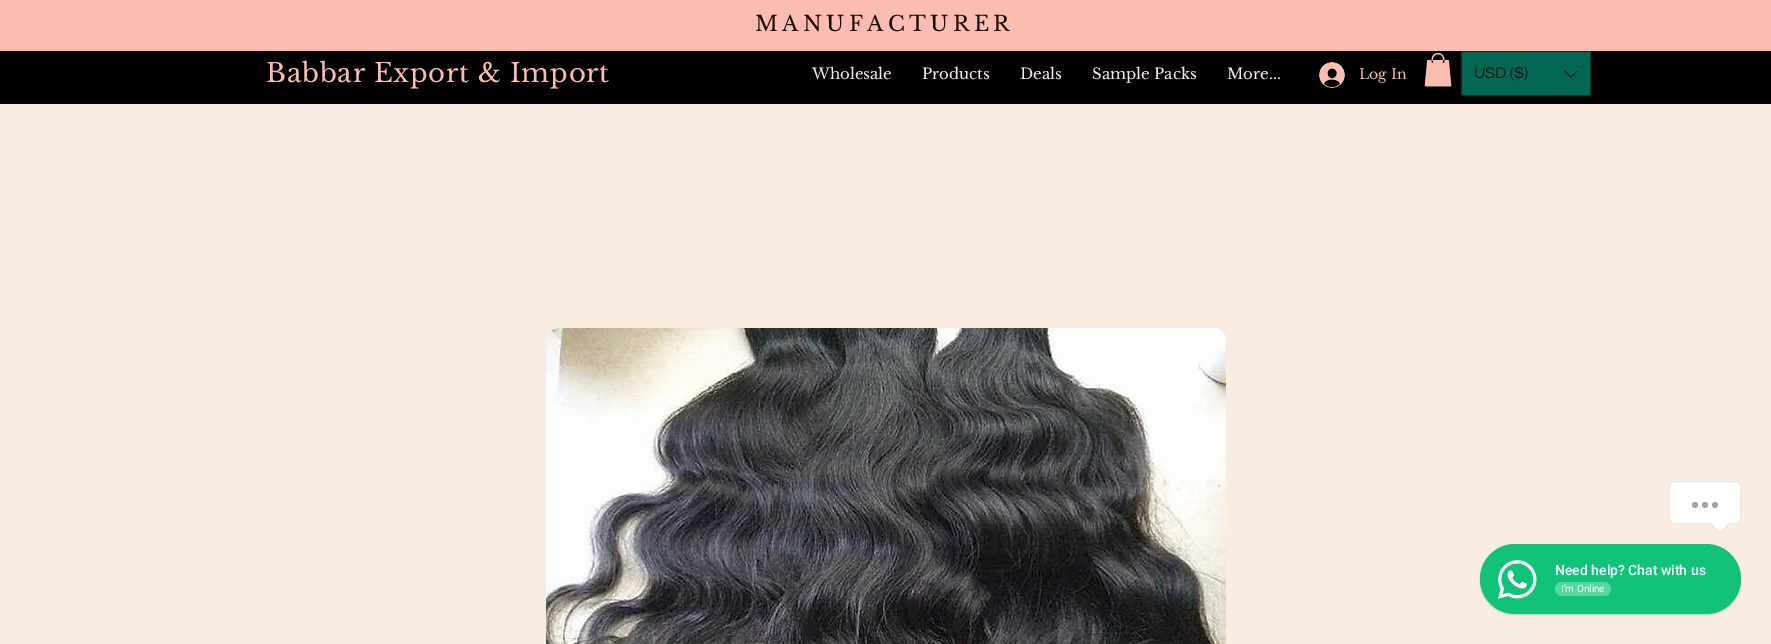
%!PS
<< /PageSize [1771 644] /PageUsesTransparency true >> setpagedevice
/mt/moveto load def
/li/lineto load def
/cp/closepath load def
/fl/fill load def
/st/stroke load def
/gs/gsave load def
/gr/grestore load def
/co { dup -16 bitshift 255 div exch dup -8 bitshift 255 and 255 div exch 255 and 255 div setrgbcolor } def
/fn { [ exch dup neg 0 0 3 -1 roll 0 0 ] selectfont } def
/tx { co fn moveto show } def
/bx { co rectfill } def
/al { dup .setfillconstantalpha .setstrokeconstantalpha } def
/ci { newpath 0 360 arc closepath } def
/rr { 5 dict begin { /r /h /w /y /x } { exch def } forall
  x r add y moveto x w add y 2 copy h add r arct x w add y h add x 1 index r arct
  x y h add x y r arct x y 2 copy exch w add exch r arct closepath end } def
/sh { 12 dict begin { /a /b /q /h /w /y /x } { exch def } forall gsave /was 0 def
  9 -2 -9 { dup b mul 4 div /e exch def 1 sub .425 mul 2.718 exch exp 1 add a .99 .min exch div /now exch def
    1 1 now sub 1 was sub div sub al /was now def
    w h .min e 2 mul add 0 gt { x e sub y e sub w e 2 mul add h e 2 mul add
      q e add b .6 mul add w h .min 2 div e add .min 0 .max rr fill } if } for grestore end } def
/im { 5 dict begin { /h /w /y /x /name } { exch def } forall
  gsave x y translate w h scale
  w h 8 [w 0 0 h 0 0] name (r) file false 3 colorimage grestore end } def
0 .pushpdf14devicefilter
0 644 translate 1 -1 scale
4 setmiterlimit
0 0 1771 644 16#FAECE1 bx
0 0 1771 51 16#FCBCB2 bx
0 51 1771 53 16#000000 bx
(media/1.raw) 1319 62 26 26 im
(media/2.raw) 1424 53 28 34 im
16#016855 co
1461.5 51.5 mt 1590.5 51.5 li 1590.5 95.5 li 1461.5 95.5 li cp gs fl gr
16#123224 co
st
(media/3.raw) 1564 70 14 8 im
16#FFFFFF co
546 328 680 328 12 rr fl
(media/4.raw) 546 328 680 316 im
1669.5 481.5 71 42 4.5 rr gs fl gr
16#E9E9E9 co
st
16#9FA4A8 co
1695 505 3 ci fl
1705 505 3 ci fl
1715 505 3 ci fl
16#E9E9E9 co
1710 523 mt 1730 523 li 1720 533 li cp fl
16#FFFFFF co
1711 523 mt 1729 523 li 1720 532 li cp fl
16#000000 co
1480 545 261 70 35 1 .15 sh
16#10C379 co
1480 544 261 70 35 rr fl
(media/5.raw) 1498 560 39 39 im
16#58D5A1 co
1555 582 56 14 7 rr fl
/LibreBaskerville-Regular 21 fn
16#1D0E03 co
755 31 mt 4.4 0 (MANUFACTURER) ashow
/LibreBaskerville-Regular 26 fn
16#FCBCB2 co
266 82 mt .75 0 (Babbar Export & Import) ashow
(Wholesale) 812 79 /LibreBaskerville-Regular 15 16#FAECE1 tx
(Products) 922 79 /LibreBaskerville-Regular 15 16#FAECE1 tx
(Deals) 1020 79 /LibreBaskerville-Regular 15 16#FAECE1 tx
(Sample Packs) 1092 79 /LibreBaskerville-Regular 15 16#FAECE1 tx
(More...) 1227 79 /LibreBaskerville-Regular 15 16#FAECE1 tx
(Log In) 1359 79 /LibreBaskerville-Regular 14 16#FCBCB2 tx
(USD \($\)) 1474 78 /Questrial-Regular 16 16#1D0E03 tx
(Need help? Chat with us) 1555 575 /Roboto-Medium 14 16#FFFFFF tx
(I'm Online) 1561 592 /Roboto-Regular 10 16#FFFFFF tx
.poppdf14devicefilter showpage
